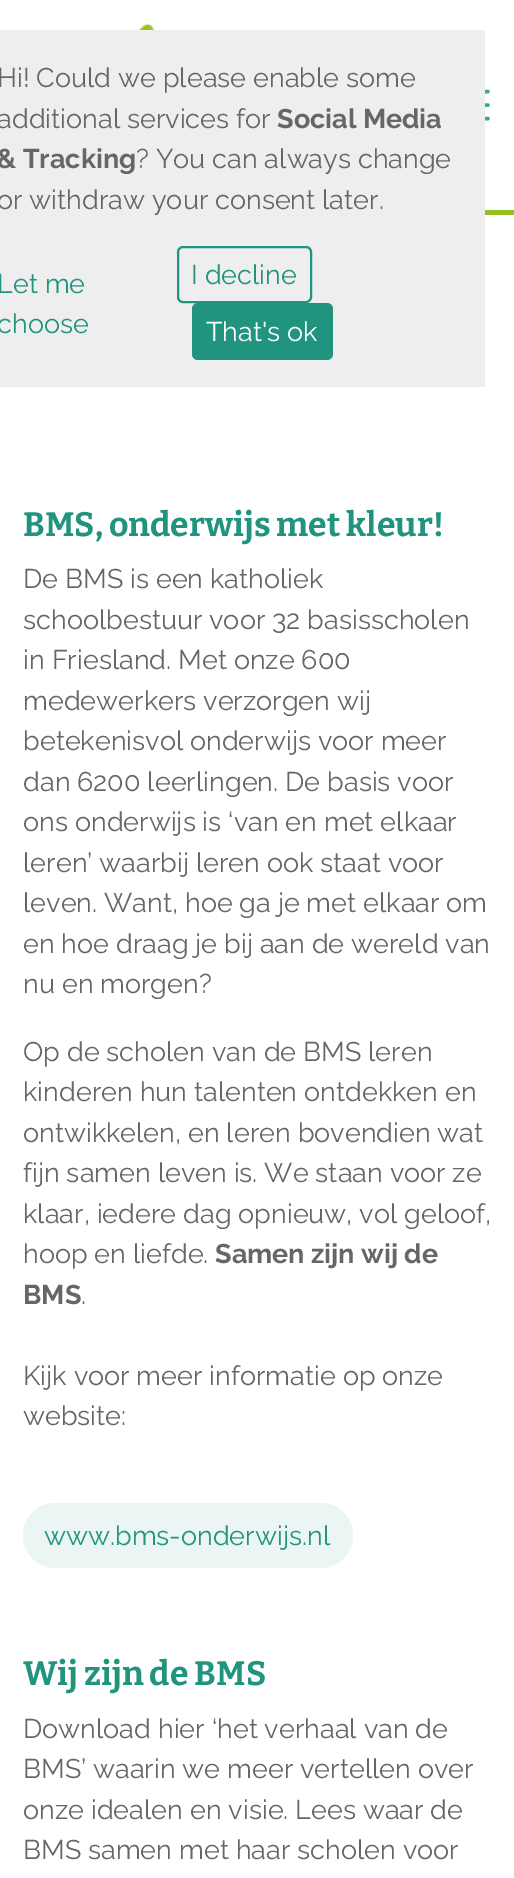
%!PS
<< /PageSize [514 1878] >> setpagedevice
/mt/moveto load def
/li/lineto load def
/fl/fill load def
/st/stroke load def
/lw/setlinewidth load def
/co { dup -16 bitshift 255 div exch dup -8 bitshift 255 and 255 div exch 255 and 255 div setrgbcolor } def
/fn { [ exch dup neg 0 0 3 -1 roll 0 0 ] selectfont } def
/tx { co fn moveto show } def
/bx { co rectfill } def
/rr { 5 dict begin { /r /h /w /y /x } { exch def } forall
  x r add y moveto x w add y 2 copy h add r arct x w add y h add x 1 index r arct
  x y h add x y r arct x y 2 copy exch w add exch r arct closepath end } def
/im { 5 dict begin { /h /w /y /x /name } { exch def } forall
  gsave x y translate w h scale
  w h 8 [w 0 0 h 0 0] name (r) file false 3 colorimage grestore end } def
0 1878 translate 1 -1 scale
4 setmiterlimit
0 0 514 1878 16#FFFFFF bx
485 210 29 5 16#95C11F bx
(media/1.raw) 1 23 310 7 im
16#35AA97 co
3.4 lw
1 setlinecap
451 91.5 mt 488 91.5 li 451 105 mt 488 105 li 451 118.5 mt 488 118.5 li st
0 30 485 357 16#EEEEEE bx
16#20947E co
2 lw
0 setlinecap
178 247 133 55 5 rr st
192 303 141 57 6 rr fl
16#EBF5F4 co
23 1503 330 65 32.5 rr fl
(Hi! Could we please enable some) -3 87 /Raleway-Regular 27 16#666666 tx
(additional services for) -3 128 /Raleway-Regular 27 16#666666 tx
(Social Media) 277 128 /Raleway-Bold 27 16#666666 tx
(& Tracking) -3 168 /Raleway-Bold 27 16#666666 tx
(? You can always change) 136 168 /Raleway-Regular 27 16#666666 tx
(or withdraw your consent later.) -3 209 /Raleway-Regular 27 16#666666 tx
(Let me) -3 293 /Raleway-Regular 27 16#20947E tx
(choose) -3 333 /Raleway-Regular 27 16#20947E tx
(I decline) 191 284 /Raleway-Regular 27 16#20947E tx
(That's ok) 206 341 /Raleway-Regular 27 16#FFFFFF tx
(BMS, onderwijs met kleur!) 23 536 /Bitter-Bold 33.75 16#20947E tx
(De BMS is een katholiek) 23 588 /Raleway-Regular 27 16#666666 tx
(schoolbestuur voor 32 basisscholen) 23 629 /Raleway-Regular 27 16#666666 tx
(in Friesland. Met onze 600) 23 669 /Raleway-Regular 27 16#666666 tx
(medewerkers verzorgen wij) 23 710 /Raleway-Regular 27 16#666666 tx
(betekenisvol onderwijs voor meer) 23 750 /Raleway-Regular 27 16#666666 tx
(dan 6200 leerlingen. De basis voor) 23 791 /Raleway-Regular 27 16#666666 tx
(ons onderwijs is ‘van en met elkaar) 23 831 /Raleway-Regular 27 16#666666 tx
(leren’ waarbij leren ook staat voor) 23 872 /Raleway-Regular 27 16#666666 tx
(leven. Want, hoe ga je met elkaar om) 23 912 /Raleway-Regular 27 16#666666 tx
(en hoe draag je bij aan de wereld van) 23 953 /Raleway-Regular 27 16#666666 tx
(nu en morgen?) 23 993 /Raleway-Regular 27 16#666666 tx
(Op de scholen van de BMS leren) 23 1061 /Raleway-Regular 27 16#666666 tx
(kinderen hun talenten ontdekken en) 23 1101 /Raleway-Regular 27 16#666666 tx
(ontwikkelen, en leren bovendien wat) 23 1142 /Raleway-Regular 27 16#666666 tx
(fijn samen leven is. We staan voor ze) 23 1182 /Raleway-Regular 27 16#666666 tx
(klaar, iedere dag opnieuw, vol geloof,) 23 1223 /Raleway-Regular 27 16#666666 tx
(hoop en liefde.) 23 1263 /Raleway-Regular 27 16#666666 tx
(Samen zijn wij de) 215 1263 /Raleway-Bold 27 16#666666 tx
(BMS) 23 1304 /Raleway-Bold 27 16#666666 tx
(.) 81 1304 /Raleway-Regular 27 16#666666 tx
(Kijk voor meer informatie op onze) 23 1385 /Raleway-Regular 27 16#666666 tx
(website:) 23 1425 /Raleway-Regular 27 16#666666 tx
(www.bms-onderwijs.nl) 44 1545 /Raleway-Regular 27 16#20947E tx
(Wij zijn de BMS) 23 1685 /Bitter-Bold 33.75 16#20947E tx
(Download hier ‘het verhaal van de) 23 1738 /Raleway-Regular 27 16#666666 tx
(BMS’ waarin we meer vertellen over) 23 1778 /Raleway-Regular 27 16#666666 tx
(onze idealen en visie. Lees waar de) 23 1819 /Raleway-Regular 27 16#666666 tx
(BMS samen met haar scholen voor) 23 1859 /Raleway-Regular 27 16#666666 tx
showpage
